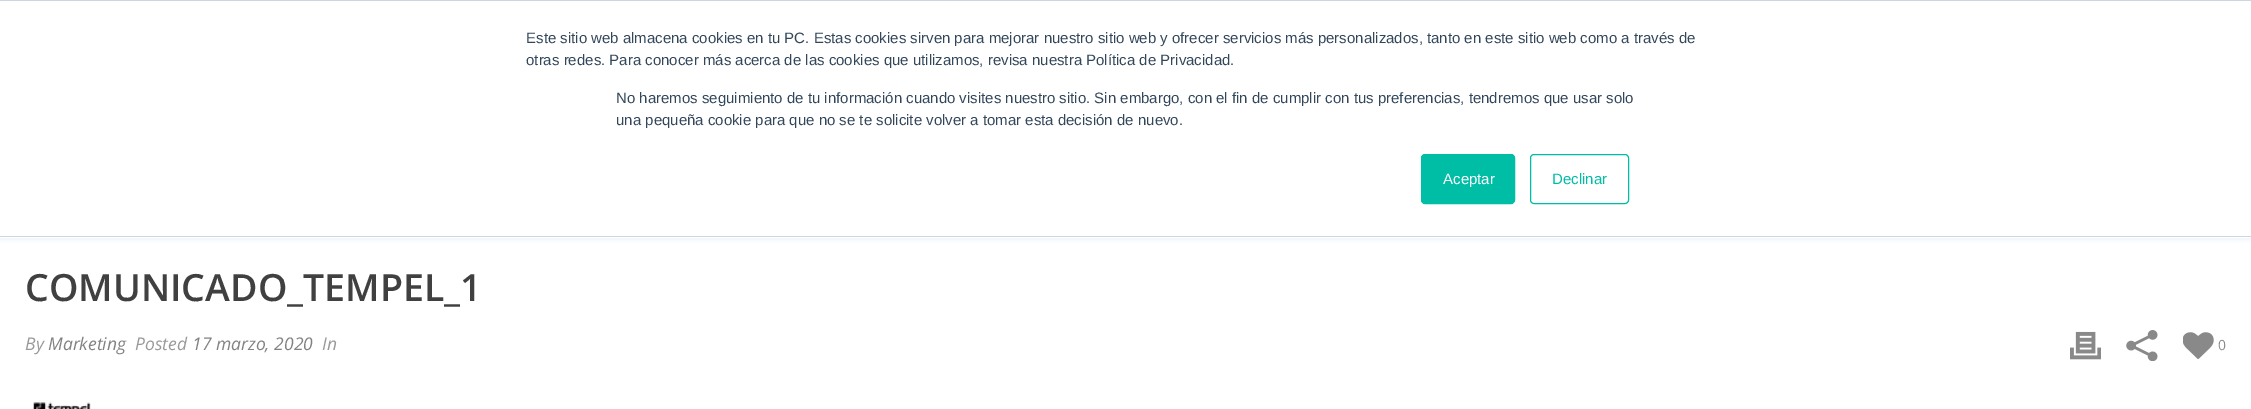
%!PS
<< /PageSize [2251 409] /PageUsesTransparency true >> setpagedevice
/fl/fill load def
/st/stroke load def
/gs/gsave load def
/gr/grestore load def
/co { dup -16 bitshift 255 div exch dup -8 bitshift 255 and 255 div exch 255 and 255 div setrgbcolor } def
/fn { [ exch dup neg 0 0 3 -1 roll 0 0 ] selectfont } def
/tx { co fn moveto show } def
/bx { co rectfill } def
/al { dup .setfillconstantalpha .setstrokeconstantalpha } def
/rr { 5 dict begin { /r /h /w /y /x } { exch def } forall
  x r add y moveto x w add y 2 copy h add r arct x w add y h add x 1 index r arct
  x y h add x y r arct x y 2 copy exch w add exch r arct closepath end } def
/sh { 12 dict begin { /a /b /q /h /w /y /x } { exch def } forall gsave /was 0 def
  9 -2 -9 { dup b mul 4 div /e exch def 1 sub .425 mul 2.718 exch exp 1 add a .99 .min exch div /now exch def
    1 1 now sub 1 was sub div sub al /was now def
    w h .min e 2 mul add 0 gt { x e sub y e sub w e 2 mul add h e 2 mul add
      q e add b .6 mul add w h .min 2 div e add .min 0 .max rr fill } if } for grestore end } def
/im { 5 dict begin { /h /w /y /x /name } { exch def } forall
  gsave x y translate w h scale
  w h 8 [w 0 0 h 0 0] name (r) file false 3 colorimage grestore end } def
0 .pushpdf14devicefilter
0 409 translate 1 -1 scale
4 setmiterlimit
0 0 2251 409 16#FFFFFF bx
16#EAF0F6 co
0 1 2251 238 0 3 1 sh
0 1 2251 237 16#FFFFFF bx
0 0 2251 1 16#CBD6E2 bx
0 236 2251 1 16#CBD6E2 bx
16#00BDA5 co
1421.5 154.5 93 49 3.5 rr gs fl gr
st
1530.5 154.5 98 49 3.5 rr st
(media/1.raw) 2070 331 31 29 im
(media/2.raw) 2126 330 32 31 im
(media/3.raw) 2183 332 31 27 im
(media/4.raw) 33 400 58 9 im
(Este sitio web almacena cookies en tu PC. Estas cookies sirven para mejorar nuestro sitio web y ofrecer servicios más personalizados, tanto en este sitio web como a través de) 526 43 /LiberationSans-Regular 15 16#33475B tx
(otras redes. Para conocer más acerca de las cookies que utilizamos, revisa nuestra Política de Privacidad.) 526 65 /LiberationSans-Regular 15 16#33475B tx
(No haremos seguimiento de tu información cuando visites nuestro sitio. Sin embargo, con el fin de cumplir con tus preferencias, tendremos que usar solo) 616 103 /LiberationSans-Regular 15 16#33475B tx
(una pequeña cookie para que no se te solicite volver a tomar esta decisión de nuevo.) 616 125 /LiberationSans-Regular 15 16#33475B tx
(Aceptar) 1443 184 /LiberationSans-Regular 15 16#FFFFFF tx
(Declinar) 1552 184 /LiberationSans-Regular 15 16#00BDA5 tx
(COMUNICADO_TEMPEL_1) 25 301 /OpenSans-SemiBold 37.5 16#404040 tx
(By) 25 350 /OpenSans-Italic 17.5 16#999999 tx
(Marketing) 48 350 /OpenSans-Italic 17.5 16#828282 tx
(Posted) 135 350 /OpenSans-Italic 17.5 16#999999 tx
(17 marzo, 2020) 192 350 /OpenSans-Italic 17.5 16#828282 tx
(In) 322 350 /OpenSans-Italic 17.5 16#999999 tx
(0) 2218 350 /OpenSans-Regular 14 16#898989 tx
.poppdf14devicefilter showpage
